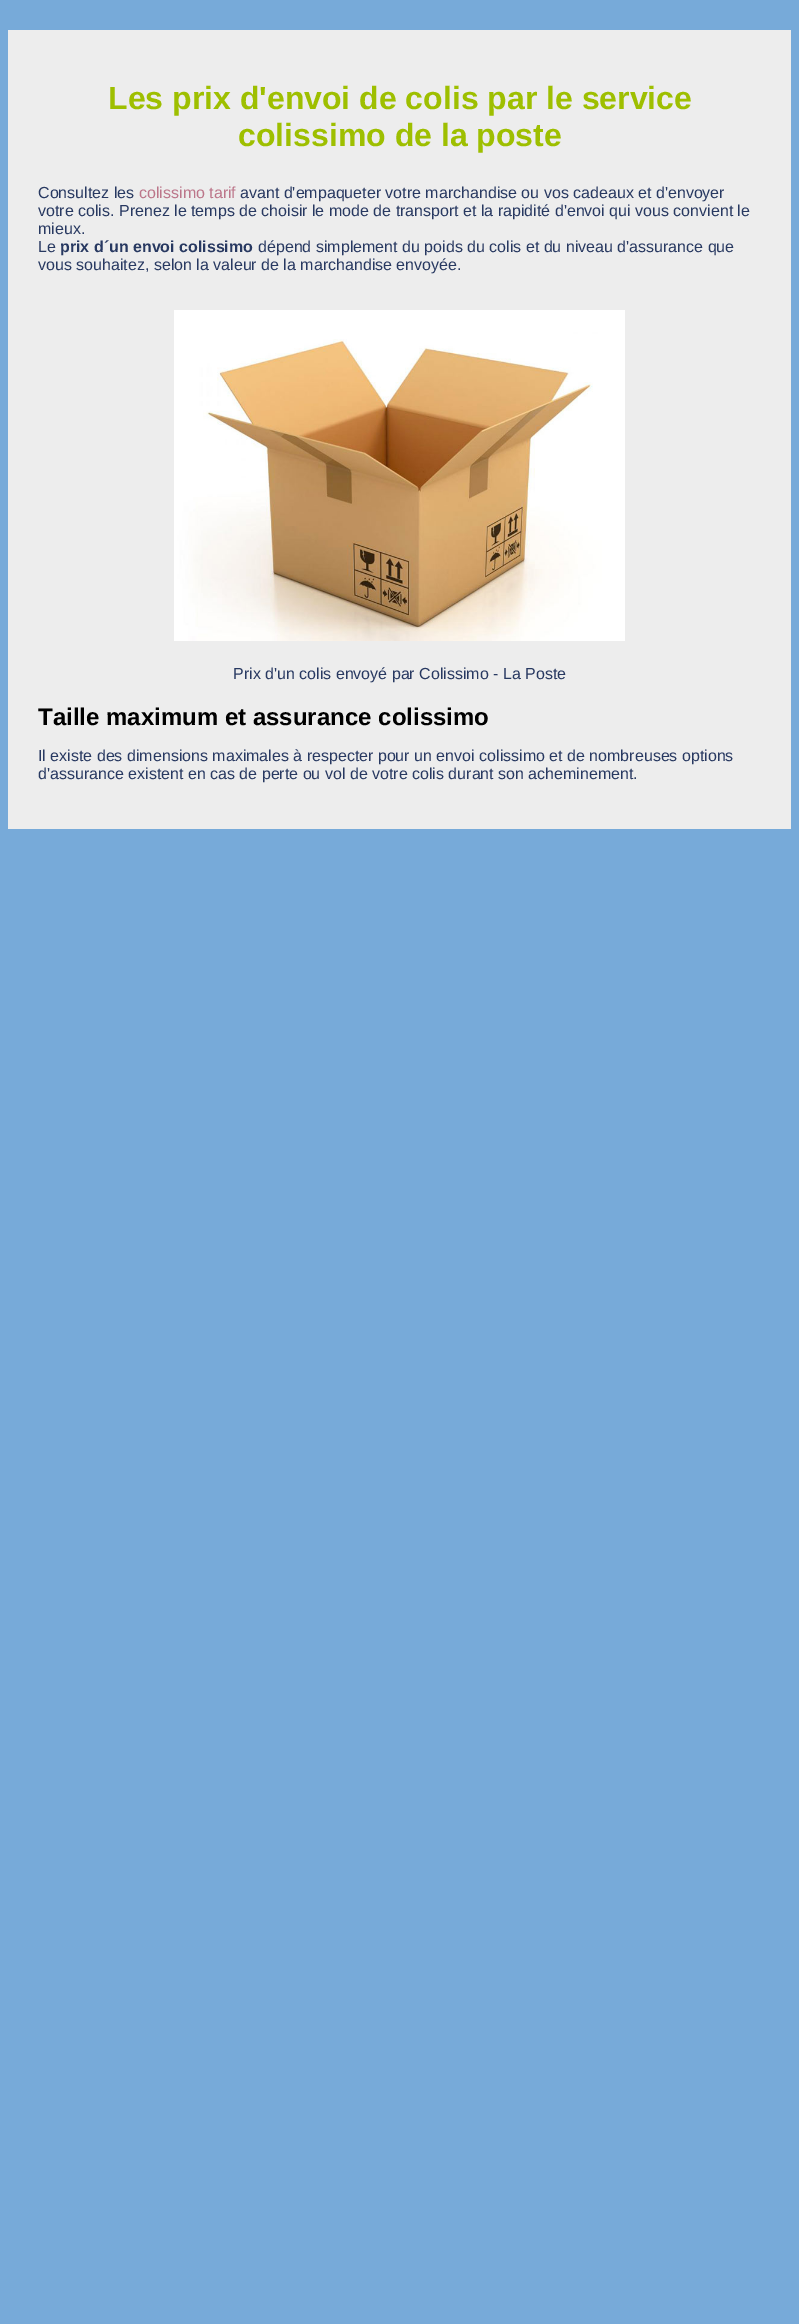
%!PS
<< /PageSize [799 2324] >> setpagedevice
/co { dup -16 bitshift 255 div exch dup -8 bitshift 255 and 255 div exch 255 and 255 div setrgbcolor } def
/fn { [ exch dup neg 0 0 3 -1 roll 0 0 ] selectfont } def
/tx { co fn moveto show } def
/bx { co rectfill } def
/im { 5 dict begin { /h /w /y /x /name } { exch def } forall
  gsave x y translate w h scale
  w h 8 [w 0 0 h 0 0] name (r) file false 3 colorimage grestore end } def
0 2324 translate 1 -1 scale
4 setmiterlimit
0 0 799 2324 16#77AAD9 bx
8 30 783 799 16#EDEDED bx
(media/1.raw) 174 310 451 331 im
(Les prix d'envoi de colis par le service) 108 109 /LiberationSans-Bold 32 16#9EBF00 tx
(colissimo de la poste) 238 146 /LiberationSans-Bold 32 16#9EBF00 tx
(Consultez les) 38 198 /LiberationSans-Regular 16 16#283961 tx
(colissimo tarif) 139 198 /LiberationSans-Regular 16 16#BC768A tx
(avant d'empaqueter votre marchandise ou vos cadeaux et d'envoyer) 240 198 /LiberationSans-Regular 16 16#283961 tx
(votre colis. Prenez le temps de choisir le mode de transport et la rapidité d'envoi qui vous convient le) 38 216 /LiberationSans-Regular 16 16#283961 tx
(mieux.) 38 234 /LiberationSans-Regular 16 16#283961 tx
(Le) 38 252 /LiberationSans-Regular 16 16#283961 tx
(prix d´un envoi colissimo) 60 252 /LiberationSans-Bold 16 16#283961 tx
(dépend simplement du poids du colis et du niveau d'assurance que) 258 252 /LiberationSans-Regular 16 16#283961 tx
(vous souhaitez, selon la valeur de la marchandise envoyée.) 38 270 /LiberationSans-Regular 16 16#283961 tx
(Prix d'un colis envoyé par Colissimo - La Poste) 233 679 /LiberationSans-Regular 16 16#283961 tx
(Taille maximum et assurance colissimo) 38 725 /LiberationSans-Bold 24 16#000000 tx
(Il existe des dimensions maximales à respecter pour un envoi colissimo et de nombreuses options) 38 761 /LiberationSans-Regular 16 16#283961 tx
(d'assurance existent en cas de perte ou vol de votre colis durant son acheminement.) 38 779 /LiberationSans-Regular 16 16#283961 tx
showpage
